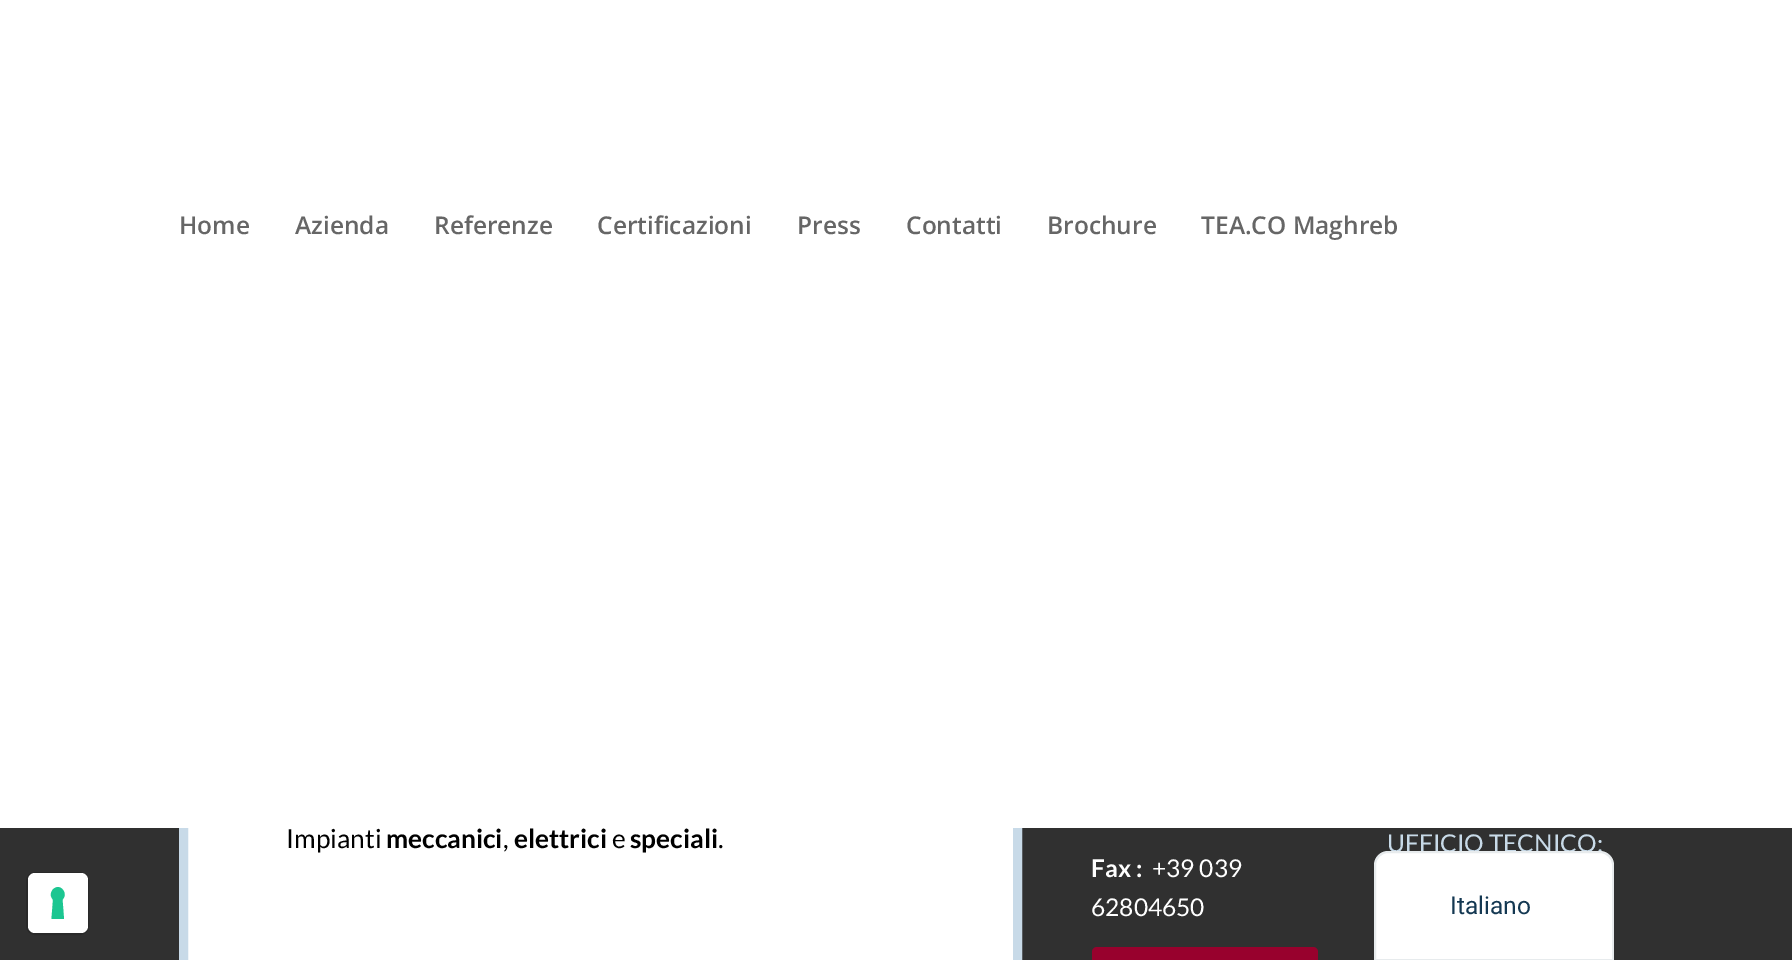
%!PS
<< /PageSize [1792 960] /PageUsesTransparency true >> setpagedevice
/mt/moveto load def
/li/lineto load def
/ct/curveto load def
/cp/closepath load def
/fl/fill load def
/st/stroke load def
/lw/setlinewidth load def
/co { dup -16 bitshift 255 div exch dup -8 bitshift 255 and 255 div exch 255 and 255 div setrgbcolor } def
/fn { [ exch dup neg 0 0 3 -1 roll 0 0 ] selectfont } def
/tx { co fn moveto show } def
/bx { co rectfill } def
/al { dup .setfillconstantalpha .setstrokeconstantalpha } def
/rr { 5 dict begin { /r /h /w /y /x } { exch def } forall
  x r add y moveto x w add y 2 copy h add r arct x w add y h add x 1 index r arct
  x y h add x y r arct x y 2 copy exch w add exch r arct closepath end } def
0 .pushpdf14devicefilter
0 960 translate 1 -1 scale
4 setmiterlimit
0 0 1792 960 16#303030 bx
16#292929 co
2 lw
27 873 61 61 8 rr st
16#FFFFFF co
28 873 60 60 7 rr fl
16#1CC691 co
58 887 mt 64 887.5 67 895.5 62.5 899.5 ct 64 919 li 51.5 919 li 53 899.5 li 48.5 895.5 51.5 887.5 58 887 ct cp eofill
188 828 825 132 16#FFFFFF bx
16#C8DAE8 co
9 lw
183.5 307.5 834 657 rectstroke
0 0 1792 828 16#FFFFFF bx
16#98012D co
1092 947 226 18 5 rr fl
(Home) 179 234 /OpenSans-SemiBold 24.5 16#666666 tx
(Azienda) 295 234 /OpenSans-SemiBold 24.5 16#666666 tx
(Referenze) 434 234 /OpenSans-SemiBold 24.5 16#666666 tx
(Certificazioni) 597 234 /OpenSans-SemiBold 24.5 16#666666 tx
(Press) 797 234 /OpenSans-SemiBold 24.5 16#666666 tx
(Contatti) 906 234 /OpenSans-SemiBold 24.5 16#666666 tx
(Brochure) 1047 234 /OpenSans-SemiBold 24.5 16#666666 tx
(TEA.CO Maghreb) 1201 234 /OpenSans-SemiBold 24.5 16#666666 tx
(Impianti) 286 848 /Lato-Regular 26.25 16#000000 tx
(meccanici) 386 848 /Lato-Bold 26.25 16#000000 tx
(,) 503 848 /Lato-Regular 26.25 16#000000 tx
(elettrici) 514 848 /Lato-Bold 26.25 16#000000 tx
(e) 612 848 /Lato-Regular 26.25 16#000000 tx
(speciali) 630 848 /Lato-Bold 26.25 16#000000 tx
(.) 718 848 /Lato-Regular 26.25 16#000000 tx
(UFFICIO TECNICO:) 1387 852 /Lato-Regular 24.5 16#C8DAE8 tx
(Fax :) 1091 877 /Lato-Bold 24.5 16#FFFFFF tx
(+39 039) 1152 877 /Lato-Regular 24.5 16#FFFFFF tx
(62804650) 1091 916 /Lato-Regular 24.5 16#FFFFFF tx
1388 851 mt 1600 851 li 1607.5 851 1614 857.5 1614 865 ct 1614 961 li 1374 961 li 1374 865 li 1374 857.5 1380.5 851 1388 851 ct cp fl
0.1 al
16#143852 co
2 lw
1388 852 mt 1600 852 li 1607 852 1613 858 1613 865 ct 1613 960 li 1375 960 li 1375 865 li 1375 858 1381 852 1388 852 ct cp st
1 al
(Italiano) 1450 914 /Roboto-Regular 24.5 16#143852 tx
.poppdf14devicefilter showpage
